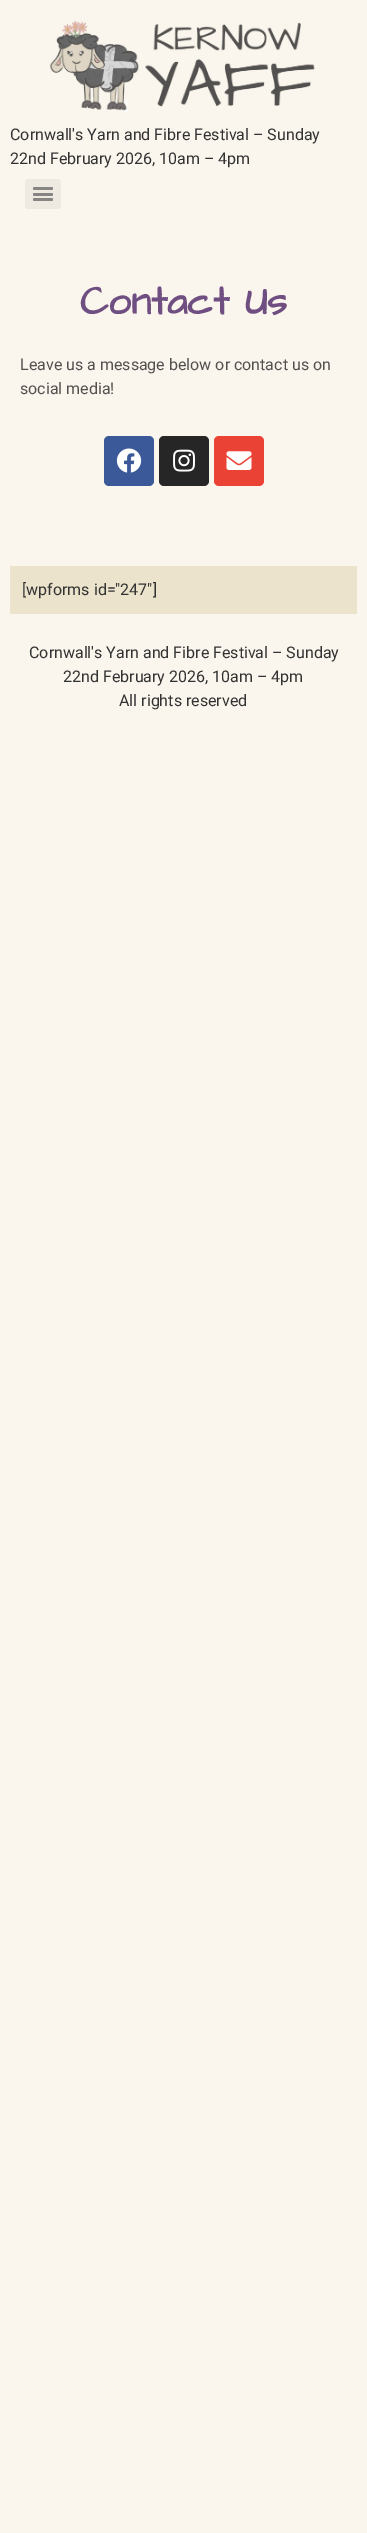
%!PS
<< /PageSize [367 2533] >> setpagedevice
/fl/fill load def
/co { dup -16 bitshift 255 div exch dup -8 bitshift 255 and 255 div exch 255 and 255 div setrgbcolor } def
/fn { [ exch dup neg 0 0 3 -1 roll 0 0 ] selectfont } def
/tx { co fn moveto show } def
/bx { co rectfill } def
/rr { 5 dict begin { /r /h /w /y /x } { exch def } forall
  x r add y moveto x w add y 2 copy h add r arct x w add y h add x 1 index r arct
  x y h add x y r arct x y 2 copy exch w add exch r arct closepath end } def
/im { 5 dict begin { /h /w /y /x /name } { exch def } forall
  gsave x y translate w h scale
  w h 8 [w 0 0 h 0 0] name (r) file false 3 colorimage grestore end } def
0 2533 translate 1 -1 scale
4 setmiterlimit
0 0 367 2533 16#FBF6ED bx
(media/1.raw) 49 20 266 93 im
16#EEEAE1 co
25 179 36 30 3 rr fl
16#878484 co
33 193 20 3 1.5 rr fl
33 187 20 3 1.5 rr fl
33 198 20 3 1.5 rr fl
16#3B5998 co
104 436 50 50 5 rr fl
(media/2.raw) 116 448 26 25 im
16#262626 co
159 436 50 50 5 rr fl
(media/3.raw) 173 449 22 23 im
16#EA4335 co
214 436 50 50 5 rr fl
(media/4.raw) 226 451 26 19 im
10 566 347 48 16#EBE3CC bx
(Cornwall's Yarn and Fibre Festival – Sunday) 10 140 /Roboto-Regular 16 16#333333 tx
(22nd February 2026, 10am – 4pm) 10 164 /Roboto-Regular 16 16#333333 tx
(Contact Us) 80 314 /ArchitectsDaughter-Bold 40 16#6F4F81 tx
(Leave us a message below or contact us on) 20 370 /Roboto-Regular 16 16#535050 tx
(social media!) 20 394 /Roboto-Regular 16 16#535050 tx
([wpforms id="247"]) 22 595 /Roboto-Regular 16 16#333333 tx
(Cornwall's Yarn and Fibre Festival – Sunday) 29 658 /Roboto-Regular 16 16#333333 tx
(22nd February 2026, 10am – 4pm) 63 682 /Roboto-Regular 16 16#333333 tx
(All rights reserved) 119 706 /Roboto-Regular 16 16#333333 tx
showpage
